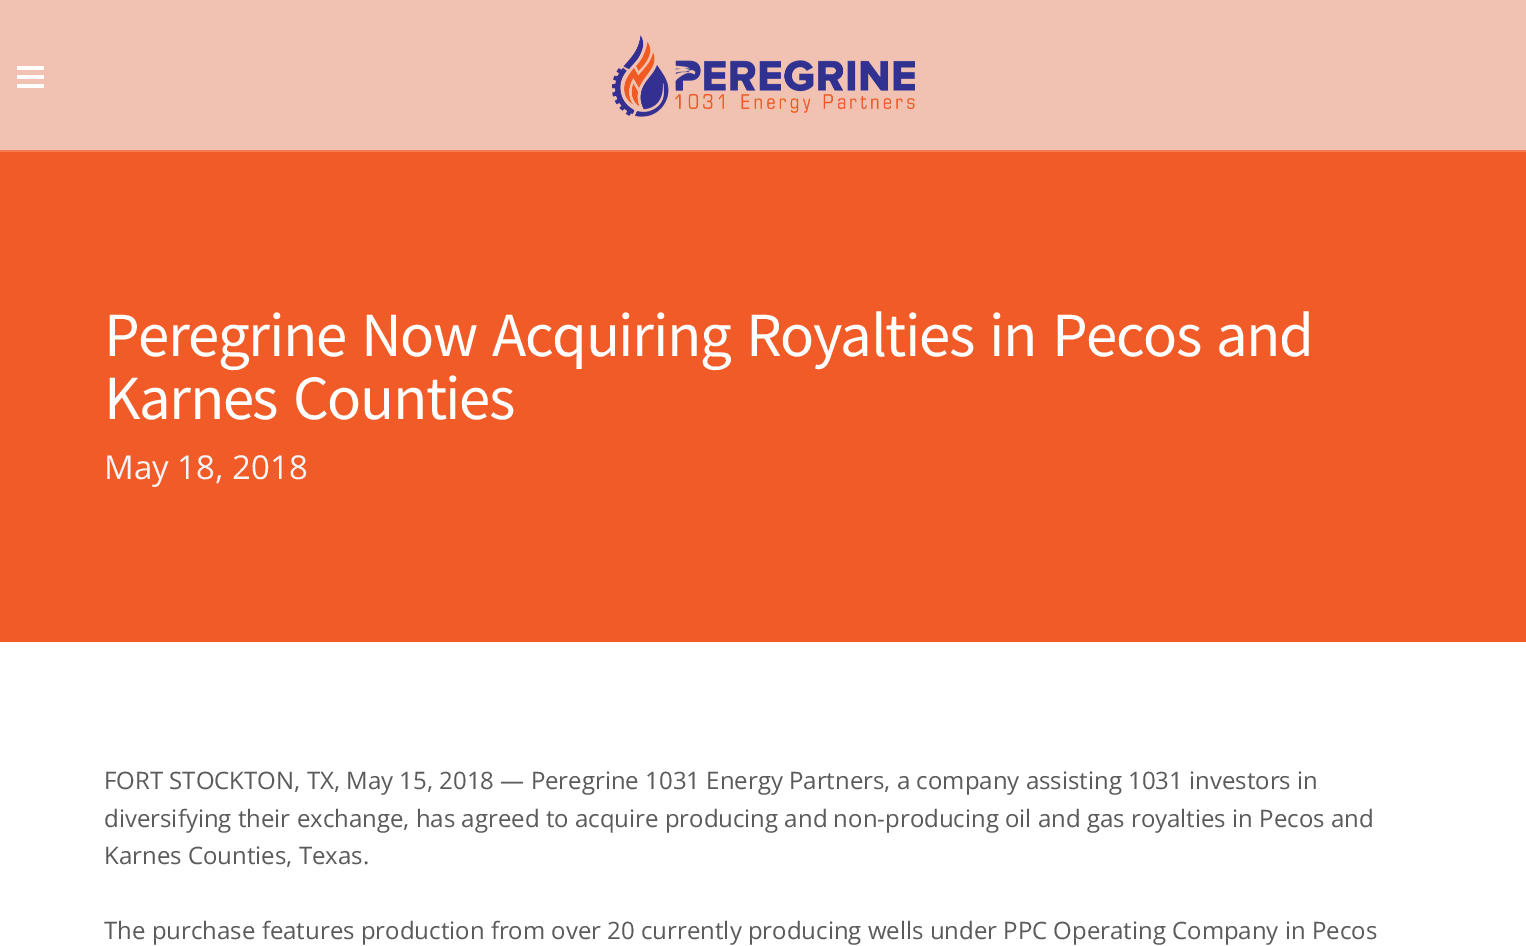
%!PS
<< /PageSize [1526 946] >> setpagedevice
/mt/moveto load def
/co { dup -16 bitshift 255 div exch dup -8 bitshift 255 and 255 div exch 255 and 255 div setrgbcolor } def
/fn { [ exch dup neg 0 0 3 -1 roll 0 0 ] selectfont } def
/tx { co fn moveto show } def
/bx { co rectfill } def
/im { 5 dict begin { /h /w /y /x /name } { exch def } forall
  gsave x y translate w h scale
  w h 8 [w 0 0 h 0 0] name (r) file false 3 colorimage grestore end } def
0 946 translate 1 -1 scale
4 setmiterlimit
0 0 1526 946 16#FFFFFF bx
0 150 1526 2 16#F47C52 bx
0 0 1526 150 16#F1C2B2 bx
17 66 27 4 16#FFFFFF bx
17 75 27 4 16#FFFFFF bx
17 84 27 4 16#FFFFFF bx
(media/1.raw) 612 35 303 82 im
0 152 1526 490 16#F15B27 bx
/SourceSansPro-Regular 63 fn
16#FFFFFF co
104 356 mt 4.5 0 32 -1.5 0 (Peregrine Now Acquiring Royalties in Pecos and) awidthshow
104 419 mt 4.5 0 32 -1.5 0 (Karnes Counties) awidthshow
(May 18, 2018) 104 479 /OpenSans-Regular 33 16#F3F5F8 tx
(FORT STOCKTON, TX, May 15, 2018 — Peregrine 1031 Energy Partners, a company assisting 1031 investors in) 104 789 /OpenSans-Regular 24 16#5B5B5B tx
(diversifying their exchange, has agreed to acquire producing and non-producing oil and gas royalties in Pecos and) 104 827 /OpenSans-Regular 24 16#5B5B5B tx
(Karnes Counties, Texas.) 104 864 /OpenSans-Regular 24 16#5B5B5B tx
(The purchase features production from over 20 currently producing wells under PPC Operating Company in Pecos) 104 939 /OpenSans-Regular 24 16#5B5B5B tx
showpage
